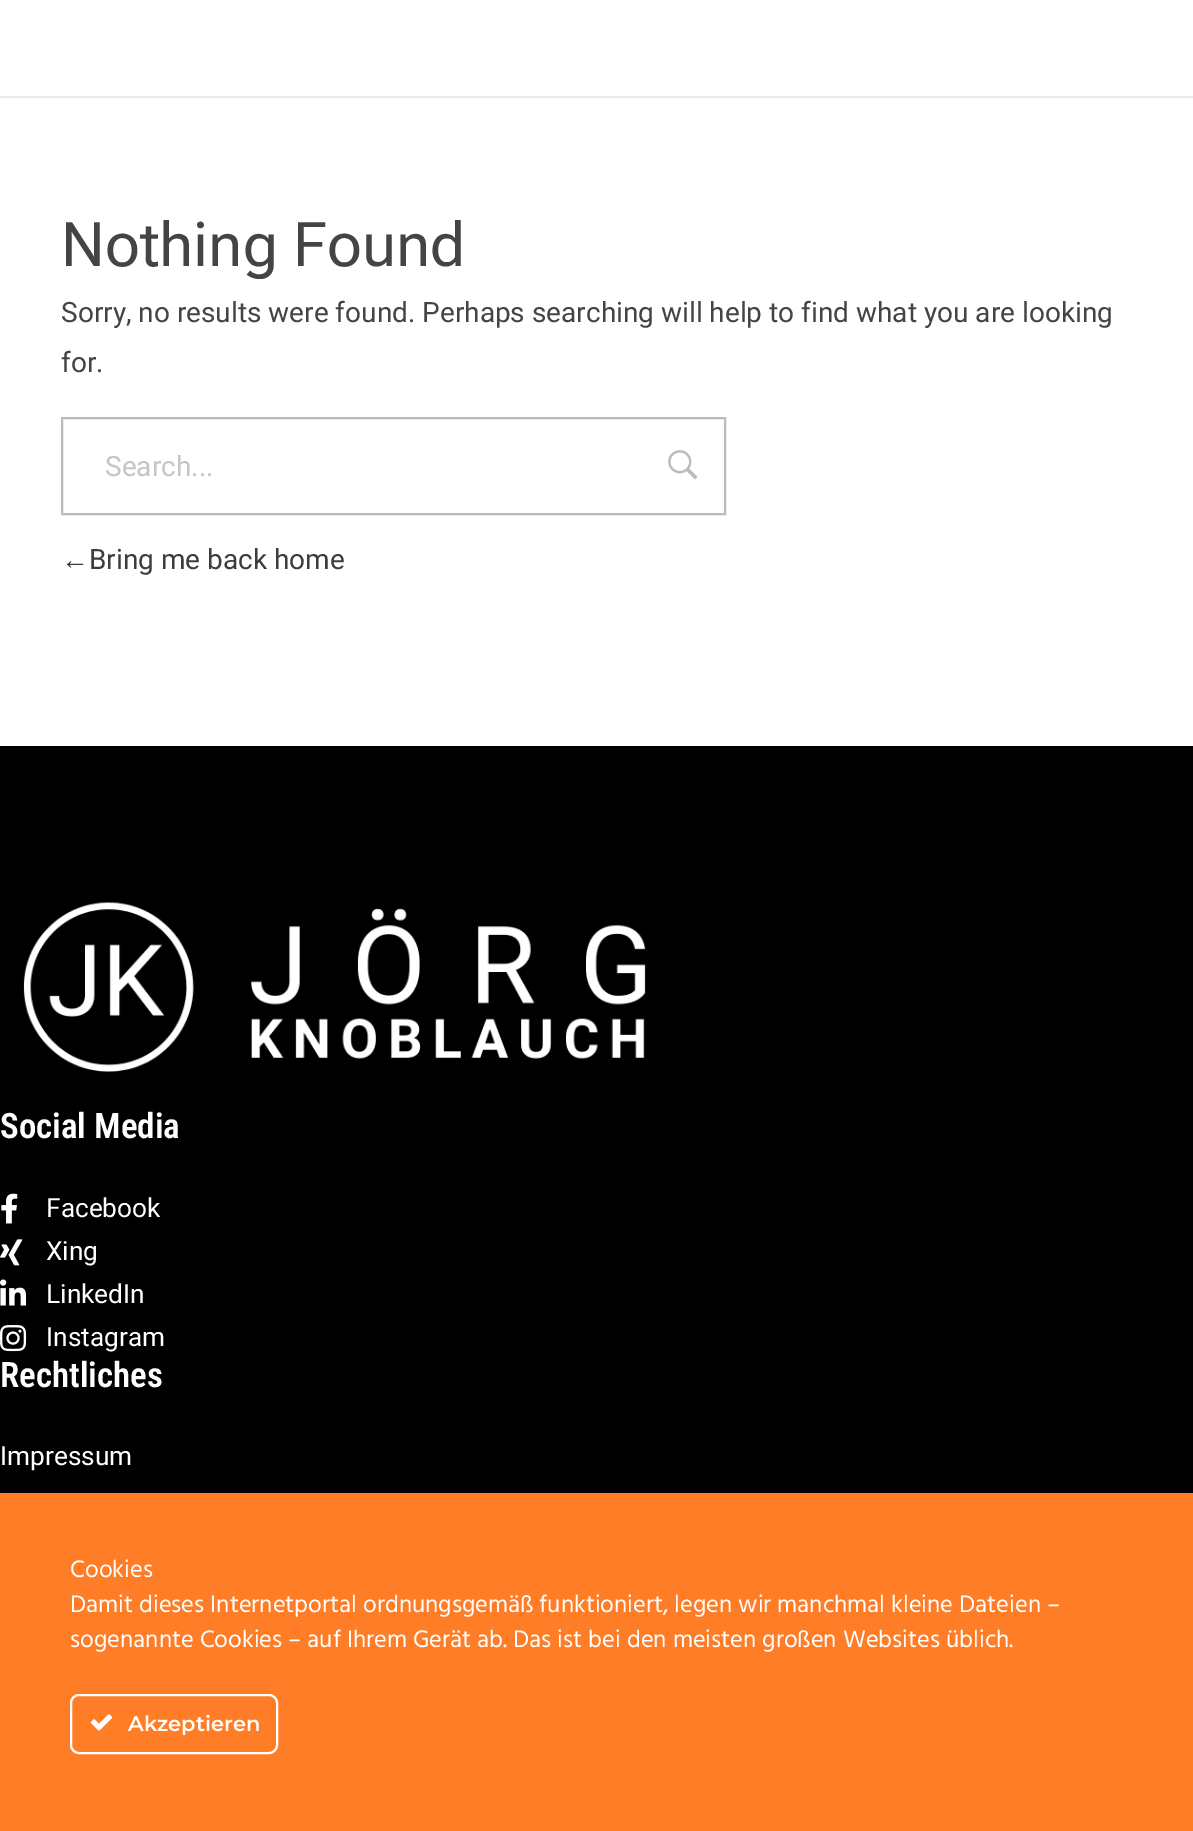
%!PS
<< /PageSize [1193 1831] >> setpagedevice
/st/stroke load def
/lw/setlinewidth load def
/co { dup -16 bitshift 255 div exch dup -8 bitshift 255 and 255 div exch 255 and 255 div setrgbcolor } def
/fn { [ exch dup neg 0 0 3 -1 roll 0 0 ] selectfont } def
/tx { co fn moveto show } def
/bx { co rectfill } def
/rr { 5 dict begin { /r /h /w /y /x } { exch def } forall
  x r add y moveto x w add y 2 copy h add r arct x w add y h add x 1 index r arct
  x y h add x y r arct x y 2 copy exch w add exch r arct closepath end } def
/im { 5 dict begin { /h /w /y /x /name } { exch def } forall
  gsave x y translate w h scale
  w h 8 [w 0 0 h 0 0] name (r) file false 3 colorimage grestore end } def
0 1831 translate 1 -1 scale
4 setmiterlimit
0 0 1193 1831 16#FFFFFF bx
0 96 1193 2 16#EAEAEA bx
16#BBBBBB co
2 lw
62 418 663 96 rectstroke
(media/1.raw) 668 450 30 30 im
0 746 1193 747 16#000000 bx
(media/2.raw) 23 902 623 170 im
(media/3.raw) 1 1193 17 31 im
(media/4.raw) 0 1239 23 27 im
(media/5.raw) 0 1279 27 27 im
(media/6.raw) 0 1325 27 27 im
0 1493 1193 338 16#FF7D27 bx
16#FFFFFF co
71 1695 206 58 8 rr st
(media/7.raw) 90 1714 23 17 im
(Nothing Found) 61 266 /RobotoFlex-Regular 61.5 16#444444 tx
(Sorry, no results were found. Perhaps searching will help to find what you are looking) 61 322 /Roboto-Regular 28 16#444444 tx
(for.) 61 372 /Roboto-Regular 28 16#444444 tx
(Search...) 105 476 /Roboto-Regular 28 16#C5C5C5 tx
(←) 61 569 /LiberationSans-Regular 28 16#3D3D3D tx
(Bring me back home) 89 569 /Roboto-Regular 28 16#3D3D3D tx
(Social Media) 0 1138 /RobotoCondensed-SemiBold 35 16#FFFFFF tx
(Facebook) 46 1217 /Roboto-Regular 26.25 16#FFFFFF tx
(Xing) 46 1260 /Roboto-Regular 26.25 16#FFFFFF tx
(LinkedIn) 46 1303 /Roboto-Regular 26.25 16#FFFFFF tx
(Instagram) 46 1346 /Roboto-Regular 26.25 16#FFFFFF tx
(Rechtliches) 0 1387 /RobotoCondensed-SemiBold 35 16#FFFFFF tx
(Impressum) 0 1465 /Roboto-Regular 26.25 16#FFFFFF tx
(Cookies) 70 1577 /Hind-Regular 24.5 16#FFFFFF tx
(Damit dieses Internetportal ordnungsgemäß funktioniert, legen wir manchmal kleine Dateien –) 70 1612 /Hind-Regular 24.5 16#FFFFFF tx
(sogenannte Cookies – auf Ihrem Gerät ab. Das ist bei den meisten großen Websites üblich.) 70 1647 /Hind-Regular 24.5 16#FFFFFF tx
(Akzeptieren) 128 1731 /Montserrat-SemiBold 21 16#FFFFFF tx
showpage
